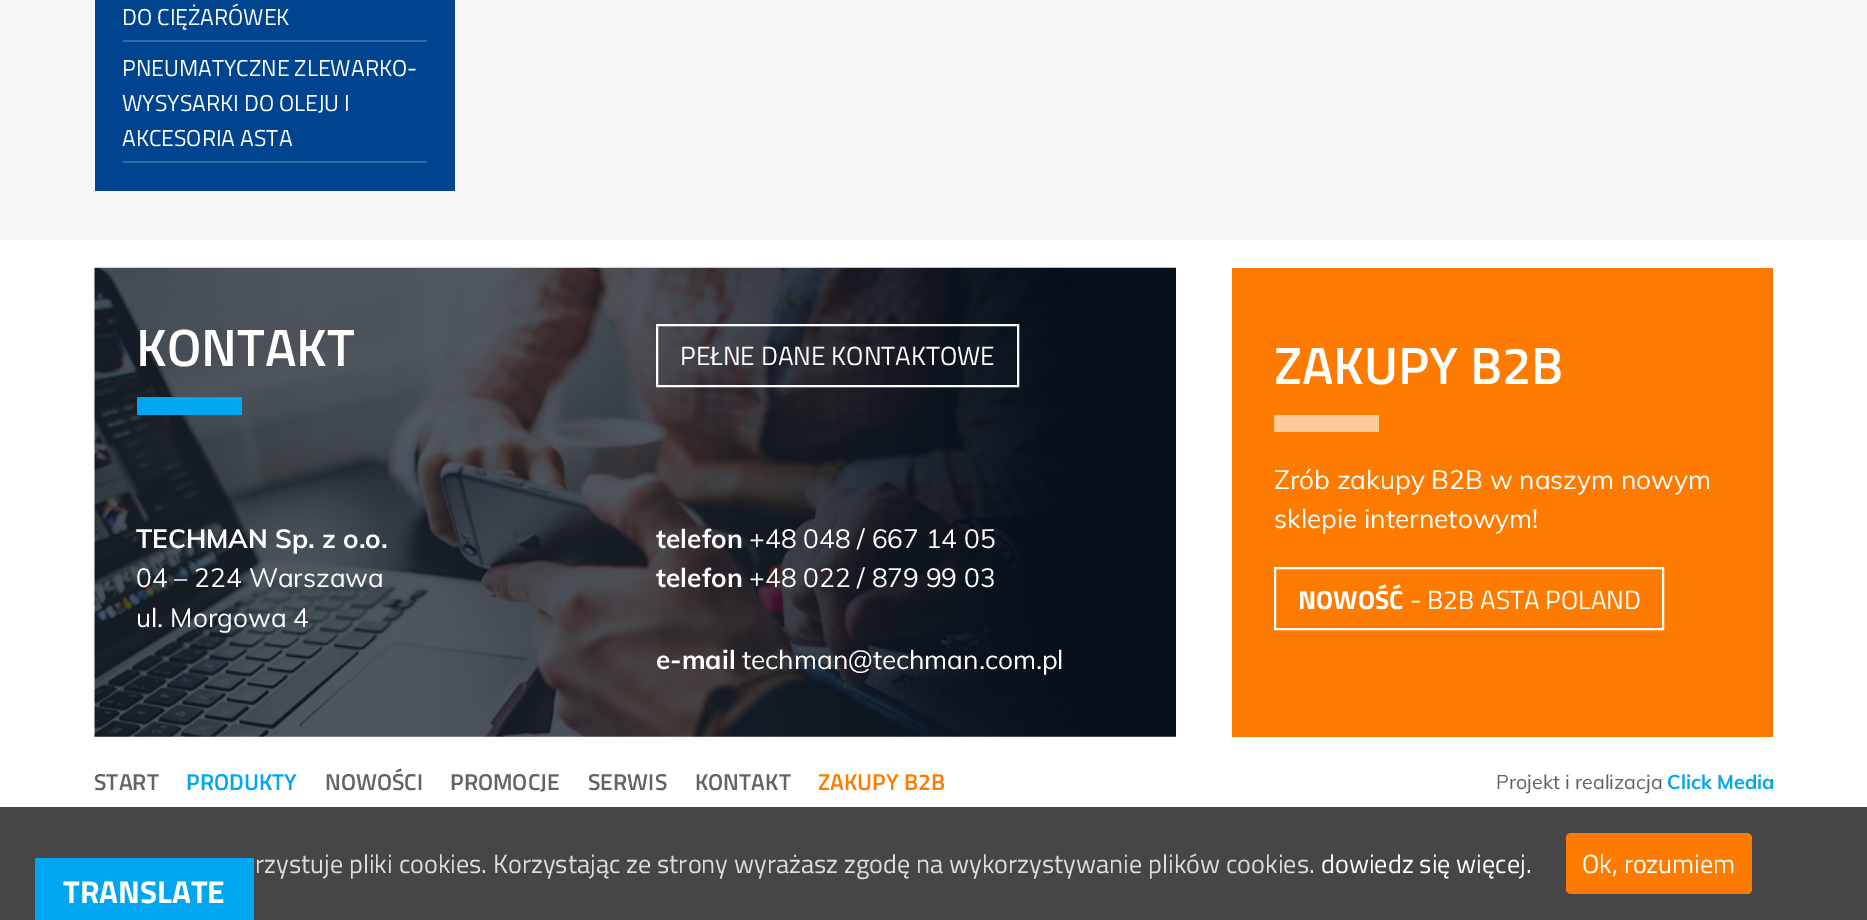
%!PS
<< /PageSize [1867 920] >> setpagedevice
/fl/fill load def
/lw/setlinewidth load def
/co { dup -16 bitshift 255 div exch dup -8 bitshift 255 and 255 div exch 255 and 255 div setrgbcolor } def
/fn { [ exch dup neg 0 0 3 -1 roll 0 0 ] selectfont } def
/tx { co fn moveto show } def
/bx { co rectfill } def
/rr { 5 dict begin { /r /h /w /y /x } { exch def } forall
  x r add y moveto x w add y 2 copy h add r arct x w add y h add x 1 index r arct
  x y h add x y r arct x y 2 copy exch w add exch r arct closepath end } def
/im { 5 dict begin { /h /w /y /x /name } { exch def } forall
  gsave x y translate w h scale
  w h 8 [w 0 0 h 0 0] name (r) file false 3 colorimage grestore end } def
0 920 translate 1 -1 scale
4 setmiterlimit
0 0 1867 920 16#FFFFFF bx
0 0 1867 240 16#F7F7F7 bx
95 0 360 191 16#004490 bx
123 40 304 2 16#3369A6 bx
123 161 304 2 16#3369A6 bx
(media/1.raw) 94 267 1082 470 im
137 397 105 18 16#00A7F0 bx
16#FFFFFF co
2 lw
657 325 361 61 rectstroke
1232 268 541 469 16#FF7B00 bx
1274 415 105 17 16#FFCA99 bx
16#FFFFFF co
1275 568 388 61 rectstroke
0 807 1867 113 16#464646 bx
16#FF7B00 co
1566 833 186 61 5 rr fl
35 858 219 62 16#00A7F0 bx
(DO CIĘŻARÓWEK) 122 25 /TitilliumWeb-Regular 23 16#FFFFFF tx
(PNEUMATYCZNE ZLEWARKO-) 122 76 /TitilliumWeb-Regular 23 16#FFFFFF tx
(WYSYSARKI DO OLEJU I) 122 111 /TitilliumWeb-Regular 23 16#FFFFFF tx
(AKCESORIA ASTA) 122 146 /TitilliumWeb-Regular 23 16#FFFFFF tx
(KONTAKT) 136 366 /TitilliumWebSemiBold-SemiBold 52.5 16#FFFFFF tx
(TECHMAN Sp. z o.o.) 136 548 /Muli-Bold 26.25 16#FFFFFF tx
(04 – 224 Warszawa) 136 587 /Muli-Regular 26.25 16#FFFFFF tx
(ul. Morgowa 4) 136 627 /Muli-Regular 26.25 16#FFFFFF tx
(PEŁNE DANE KONTAKTOWE) 680 365 /TitilliumWeb-Regular 26.25 16#FFFFFF tx
(telefon) 656 548 /Muli-Bold 26.25 16#FFFFFF tx
(+48 048 / 667 14 05) 749 548 /Muli-Regular 26.25 16#FFFFFF tx
(telefon) 656 587 /Muli-Bold 26.25 16#FFFFFF tx
(+48 022 / 879 99 03) 749 587 /Muli-Regular 26.25 16#FFFFFF tx
(e-mail) 656 669 /Muli-Bold 26.25 16#FFFFFF tx
(techman@techman.com.pl) 742 669 /Muli-Regular 26.25 16#FFFFFF tx
(ZAKUPY B2B) 1274 384 /TitilliumWebSemiBold-SemiBold 52.5 16#FFFFFF tx
(Zrób zakupy B2B w naszym nowym) 1274 489 /Muli-Regular 26.25 16#FFFFFF tx
(sklepie internetowym!) 1274 528 /Muli-Regular 26.25 16#FFFFFF tx
(NOWOŚĆ) 1298 609 /TitilliumWeb-Bold 26.25 16#FFFFFF tx
(- B2B ASTA POLAND) 1410 609 /TitilliumWeb-Regular 26.25 16#FFFFFF tx
(START) 94 790 /TitilliumWebSemiBold-SemiBold 23 16#636363 tx
(PRODUKTY) 186 790 /TitilliumWebSemiBold-SemiBold 23 16#00A7F0 tx
(NOWOŚCI) 325 790 /TitilliumWebSemiBold-SemiBold 23 16#636363 tx
(PROMOCJE) 450 790 /TitilliumWebSemiBold-SemiBold 23 16#636363 tx
(SERWIS) 588 790 /TitilliumWebSemiBold-SemiBold 23 16#636363 tx
(KONTAKT) 695 790 /TitilliumWebSemiBold-SemiBold 23 16#636363 tx
(ZAKUPY B2B) 818 790 /TitilliumWebSemiBold-SemiBold 23 16#FF7B00 tx
(Projekt i realizacja) 1496 789 /Muli-Regular 19.75 16#636363 tx
(Click Media) 1667 789 /Muli-Bold 19.75 16#00A7F0 tx
(rzystuje pliki cookies. Korzystając ze strony wyrażasz zgodę na wykorzystywanie plików cookies.) 255 873 /TitilliumWeb-Regular 26.25 16#DDDDDD tx
(dowiedz się więcej.) 1321 873 /TitilliumWeb-Regular 26.25 16#FFFFFF tx
(Ok, rozumiem) 1582 873 /TitilliumWeb-Regular 26.25 16#FFFFFF tx
(TRANSLATE) 63 903 /TitilliumWeb-Bold 31.5 16#FFFFFF tx
showpage
